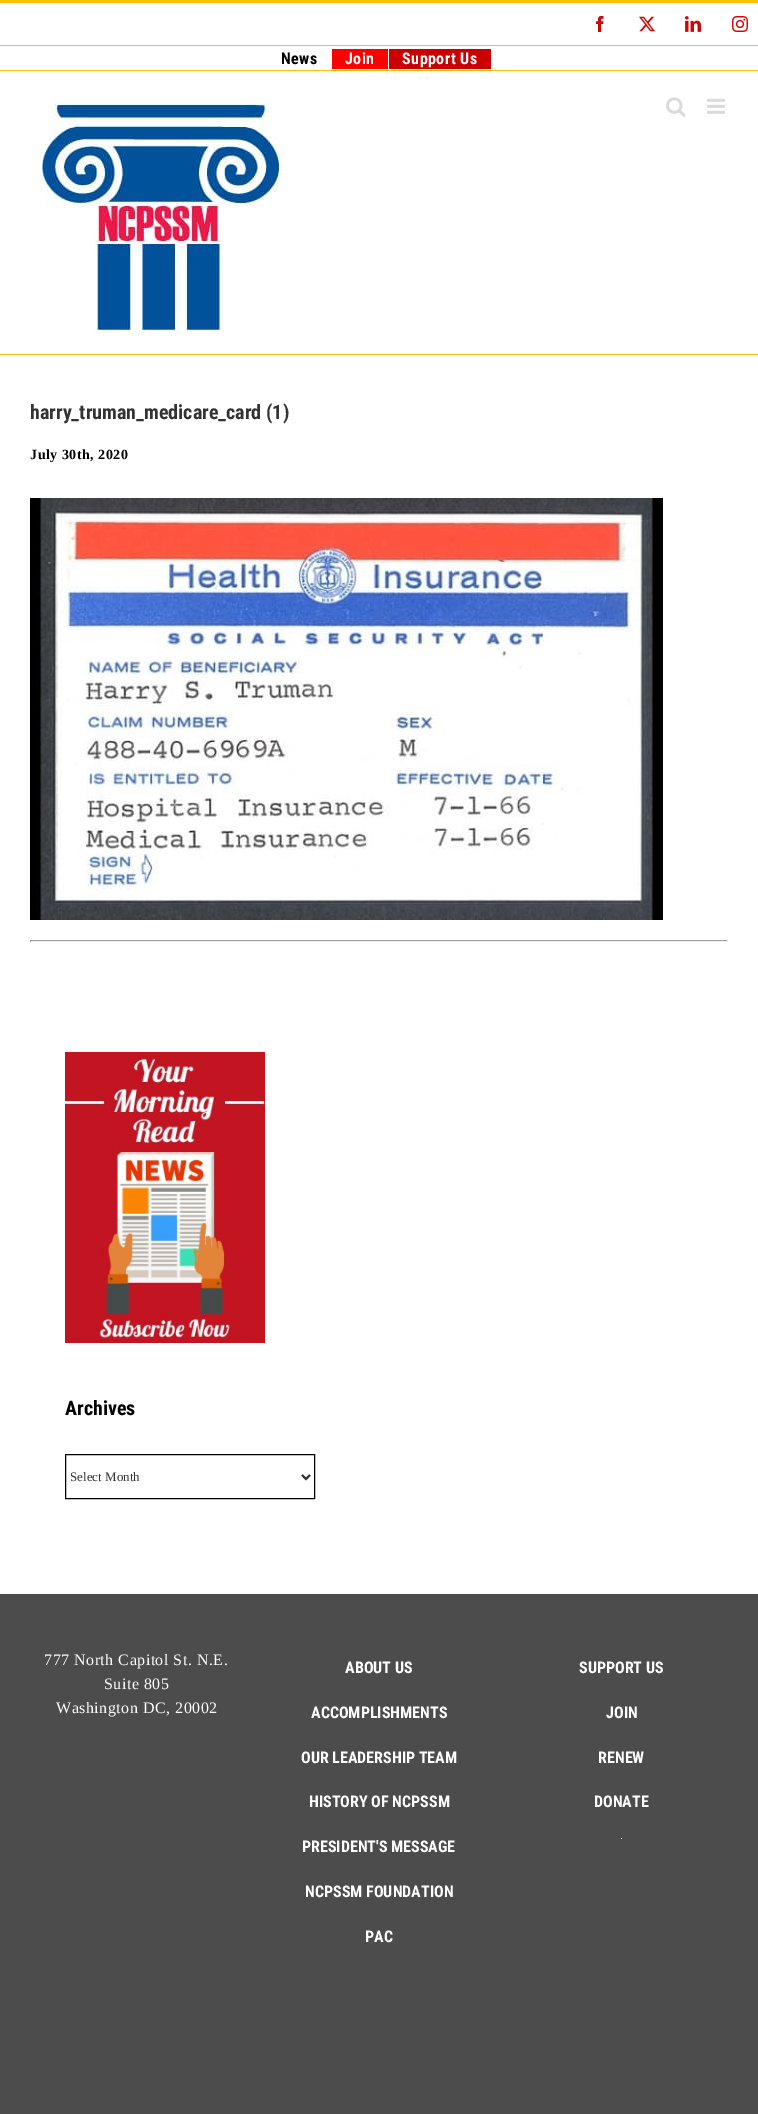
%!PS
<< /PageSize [758 2114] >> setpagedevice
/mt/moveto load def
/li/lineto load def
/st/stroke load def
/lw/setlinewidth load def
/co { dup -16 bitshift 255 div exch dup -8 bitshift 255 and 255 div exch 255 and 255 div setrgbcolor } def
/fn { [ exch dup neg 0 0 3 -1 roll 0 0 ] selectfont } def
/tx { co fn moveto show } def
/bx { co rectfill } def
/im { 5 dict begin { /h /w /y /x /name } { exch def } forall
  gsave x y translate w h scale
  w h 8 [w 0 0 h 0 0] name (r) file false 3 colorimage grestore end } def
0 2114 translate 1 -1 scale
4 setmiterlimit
0 0 758 2114 16#FFFFFF bx
0 0 758 3 16#FFC107 bx
0 70 758 1 16#FFC107 bx
0 45 758 1 16#FFC107 bx
(media/1.raw) 596 16 8 16 im
(media/2.raw) 639 16 16 16 im
(media/3.raw) 685 16 16 16 im
(media/4.raw) 732 16 16 16 im
332 49 56 20 16#FF0000 bx
389 49 102 20 16#CC0000 bx
0 354 758 1 16#FFC107 bx
(media/5.raw) 30 96 256 238 im
(media/6.raw) 666 97 20 20 im
(media/7.raw) 707 98 18 16 im
(media/8.raw) 30 498 633 422 im
30 940 698 1 16#9F9F9F bx
727 940 1 2 16#EEEEEE bx
30 941 698 1 16#EEEEEE bx
30 940 1 2 16#9F9F9F bx
(media/9.raw) 65 1052 200 291 im
16#000000 co
65.5 1454.5 249 44 rectstroke
16#333333 co
2 lw
302 1475 mt 306 1479 li 310 1475 li st
0 1594 758 520 16#4C4C4C bx
621 1838 1 1 16#FFFFFF bx
/RobotoCondensed-Bold 16 fn
16#000000 co
281 64 mt .5 0 (News) ashow
16#FFFFFF co
345 64 mt .5 0 (Join) ashow
402 64 mt .5 0 (Support Us) ashow
(harry_truman_medicare_card \(1\)) 30 419 /RobotoCondensed-Bold 20 16#333333 tx
/LiberationSerif-Bold 14 fn
16#000000 co
30 459 mt .5 0 (July 30th, 2020) ashow
(Archives) 65 1415 /RobotoCondensed-Bold 20 16#000000 tx
(Select Month) 70 1481 /LiberationSerif-Regular 13 16#333333 tx
/LiberationSerif-Regular 16 fn
16#FFFFFF co
44 1665 mt .5 0 (777 North Capitol St. N.E.) ashow
104 1689 mt .5 0 (Suite 805) ashow
56 1713 mt .5 0 (Washington DC, 20002) ashow
(ABOUT US) 345 1673 /RobotoCondensed-Bold 16 16#FFFFFF tx
(ACCOMPLISHMENTS) 311 1718 /RobotoCondensed-Bold 16 16#FFFFFF tx
(OUR LEADERSHIP TEAM) 301 1763 /RobotoCondensed-Bold 16 16#FFFFFF tx
(HISTORY OF NCPSSM) 309 1807 /RobotoCondensed-Bold 16 16#FFFFFF tx
(PRESIDENT'S MESSAGE) 302 1852 /RobotoCondensed-Bold 16 16#FFFFFF tx
(NCPSSM FOUNDATION) 305 1897 /RobotoCondensed-Bold 16 16#FFFFFF tx
(PAC) 365 1942 /RobotoCondensed-Bold 16 16#FFFFFF tx
(SUPPORT US) 579 1673 /RobotoCondensed-Bold 16 16#FFFFFF tx
(JOIN) 606 1718 /RobotoCondensed-Bold 16 16#FFFFFF tx
(RENEW) 598 1763 /RobotoCondensed-Bold 16 16#FFFFFF tx
(DONATE) 594 1807 /RobotoCondensed-Bold 16 16#FFFFFF tx
showpage
